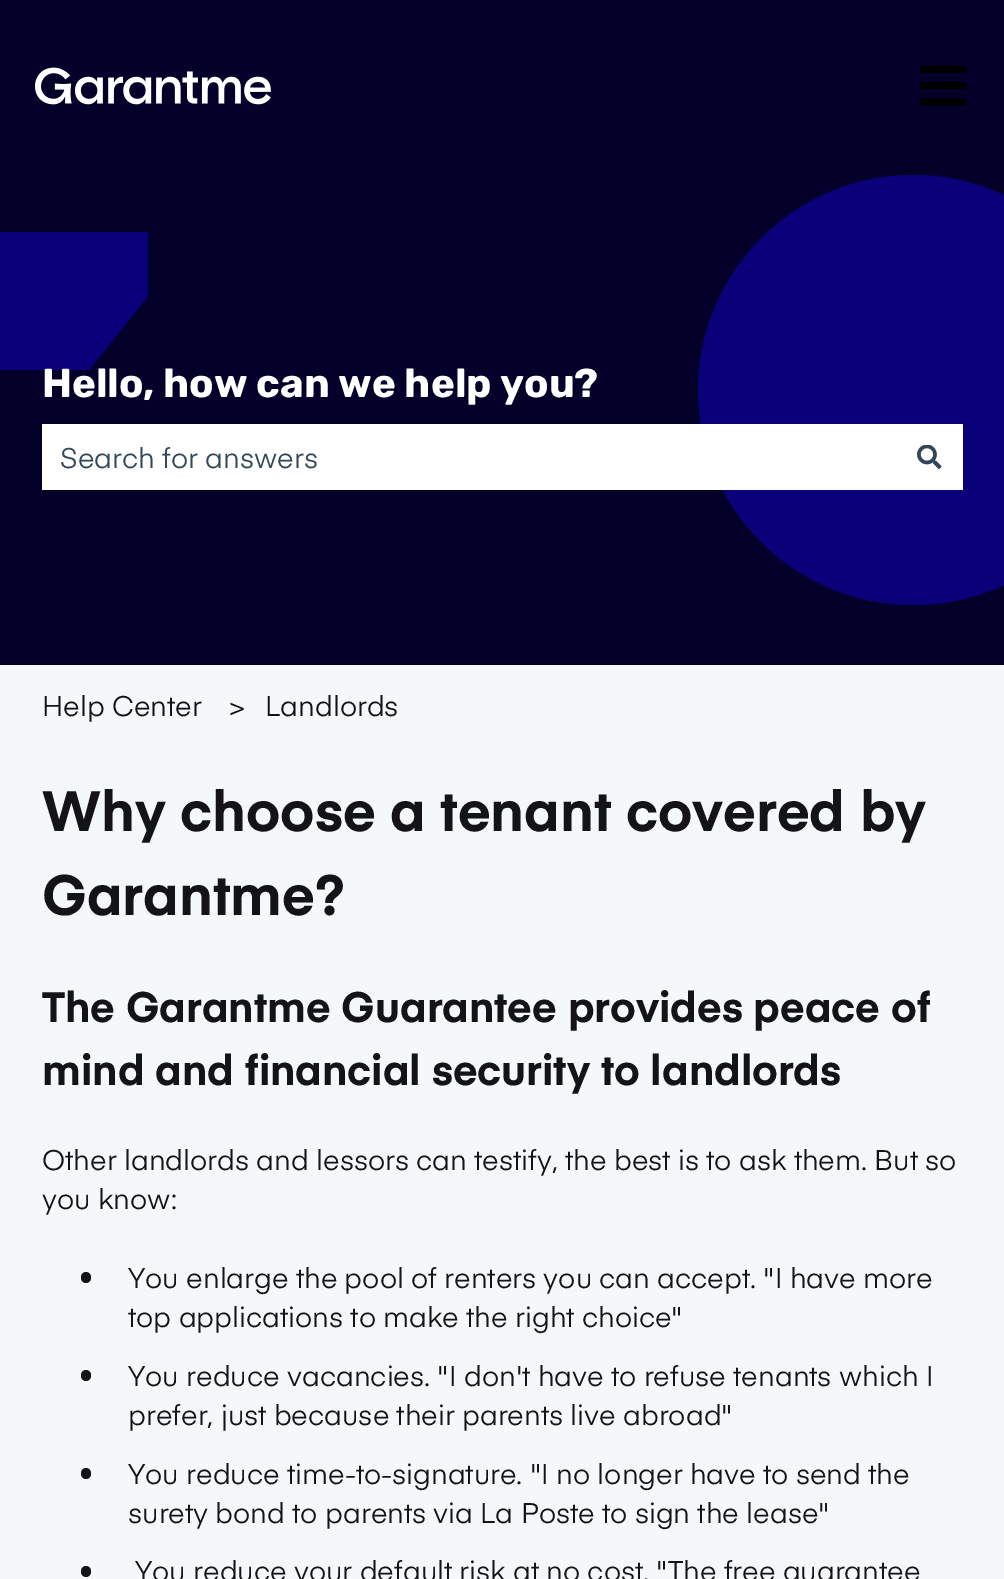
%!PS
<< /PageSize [1004 1579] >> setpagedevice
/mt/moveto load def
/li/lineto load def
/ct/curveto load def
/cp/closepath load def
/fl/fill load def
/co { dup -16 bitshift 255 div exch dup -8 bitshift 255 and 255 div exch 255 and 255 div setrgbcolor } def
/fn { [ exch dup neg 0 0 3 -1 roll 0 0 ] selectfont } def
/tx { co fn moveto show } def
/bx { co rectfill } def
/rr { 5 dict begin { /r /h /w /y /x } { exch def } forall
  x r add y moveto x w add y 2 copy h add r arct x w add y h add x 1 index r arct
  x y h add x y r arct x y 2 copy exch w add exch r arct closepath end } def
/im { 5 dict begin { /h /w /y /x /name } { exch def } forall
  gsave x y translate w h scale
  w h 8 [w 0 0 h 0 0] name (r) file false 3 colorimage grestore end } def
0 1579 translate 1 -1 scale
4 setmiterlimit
0 0 1004 1579 16#F5F8FA bx
0 0 1004 665 16#030029 bx
(media/1.raw) 35 67 236 38 im
(media/2.raw) 920 65 47 41 im
16#0A007A co
913 605 mt 795 605 698 509 698 390 ct 698 272 795 175 913 175 ct 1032 175 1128 272 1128 390 ct 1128 509 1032 605 913 605 ct cp eofill
0 232 mt 148 232 li 148 296 li 89 370 li 0 370 li cp eofill
42 424 921 66 16#FFFFFF bx
(media/3.raw) 917 445 25 24 im
16#141416 co
81 1272 10 11 5 rr fl
81 1370 10 11 5 rr fl
81 1468 10 11 5 rr fl
81 1566 10 11 5 rr fl
(Hello, how can we help you?) 42 397 /Rubik-Bold 40.25 16#FFFFFF tx
(Search for answers) 60 468 /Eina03-Regular 28 16#33475B tx
(Help Center) 42 716 /Eina03-Regular 28 16#141416 tx
(>) 229 716 /Eina03-Regular 28 16#141416 tx
(Landlords) 265 716 /Eina03-Regular 28 16#141416 tx
(Why choose a tenant covered by) 42 831 /Eina03-Bold 56 16#141416 tx
(Garantme?) 42 915 /Eina03-Bold 56 16#141416 tx
(The Garantme Guarantee provides peace of) 42 1022 /Eina03-Bold 42 16#141416 tx
(mind and financial security to landlords) 42 1085 /Eina03-Bold 42 16#141416 tx
(Other landlords and lessors can testify, the best is to ask them. But so) 42 1170 /Eina03-Regular 28 16#141416 tx
(you know:) 42 1209 /Eina03-Regular 28 16#141416 tx
(You enlarge the pool of renters you can accept. "I have more) 128 1288 /Eina03-Regular 28 16#141416 tx
(top applications to make the right choice") 128 1327 /Eina03-Regular 28 16#141416 tx
(You reduce vacancies. "I don't have to refuse tenants which I) 128 1386 /Eina03-Regular 28 16#141416 tx
(prefer, just because their parents live abroad") 128 1425 /Eina03-Regular 28 16#141416 tx
(You reduce time-to-signature. "I no longer have to send the) 128 1484 /Eina03-Regular 28 16#141416 tx
(surety bond to parents via La Poste to sign the lease") 128 1523 /Eina03-Regular 28 16#141416 tx
(You reduce your default risk at no cost. "The free guarantee) 135 1581 /Eina03-Regular 28 16#141416 tx
showpage
